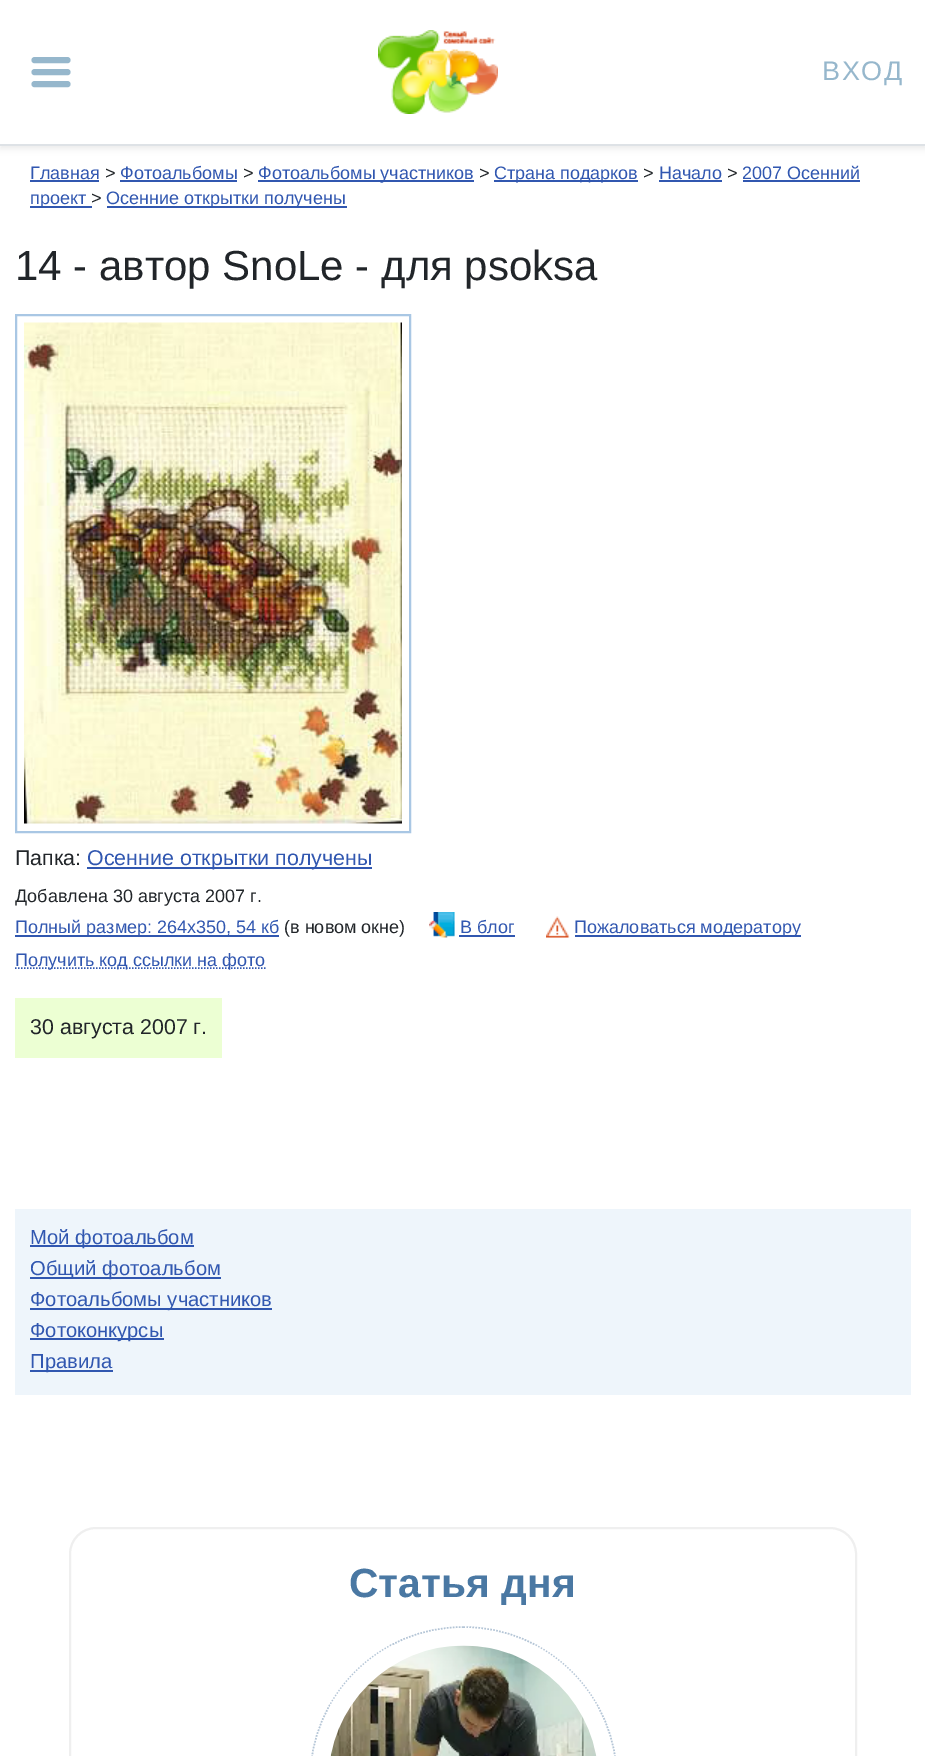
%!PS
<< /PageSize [925 1756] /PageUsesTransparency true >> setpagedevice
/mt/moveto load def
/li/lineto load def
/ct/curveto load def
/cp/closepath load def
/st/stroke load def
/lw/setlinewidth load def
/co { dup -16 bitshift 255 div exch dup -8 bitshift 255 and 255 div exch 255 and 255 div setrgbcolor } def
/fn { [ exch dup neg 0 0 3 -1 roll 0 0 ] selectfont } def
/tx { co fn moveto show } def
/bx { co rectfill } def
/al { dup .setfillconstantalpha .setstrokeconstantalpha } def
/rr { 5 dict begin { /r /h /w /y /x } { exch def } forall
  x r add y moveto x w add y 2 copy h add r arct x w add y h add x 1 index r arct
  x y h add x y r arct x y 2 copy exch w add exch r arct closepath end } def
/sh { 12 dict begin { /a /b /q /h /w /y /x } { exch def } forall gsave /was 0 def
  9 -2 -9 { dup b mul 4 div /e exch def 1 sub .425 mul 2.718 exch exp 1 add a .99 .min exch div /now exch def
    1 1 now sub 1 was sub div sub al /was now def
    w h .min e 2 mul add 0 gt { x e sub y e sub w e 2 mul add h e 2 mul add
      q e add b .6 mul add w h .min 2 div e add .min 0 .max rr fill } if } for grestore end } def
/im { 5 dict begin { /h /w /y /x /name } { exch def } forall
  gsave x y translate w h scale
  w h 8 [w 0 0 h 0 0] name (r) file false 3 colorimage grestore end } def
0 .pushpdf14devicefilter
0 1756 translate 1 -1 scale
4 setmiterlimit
0 0 925 1756 16#FFFFFF bx
16#000000 co
0 3 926 146 0 3 .07 sh
0 0 925 144 16#FFFFFF bx
0 144 925 2 16#DEE2E6 bx
16#96B7CC co
6 lw
1 setlinecap
34.5 60 mt 67.5 60 li 34.5 72 mt 67.5 72 li 34.5 84 mt 67.5 84 li st
(media/1.raw) 378 30 120 84 im
30 180 69 2 16#3157B0 bx
120 180 117 2 16#3157B0 bx
258 180 216 2 16#3157B0 bx
494 180 144 2 16#3157B0 bx
659 180 63 2 16#3157B0 bx
743 180 117 2 16#3157B0 bx
30 206 62 2 16#3157B0 bx
107 206 240 2 16#3157B0 bx
16#A9C7E4 co
2 lw
0 setlinecap
16 315 394 517 rectstroke
(media/2.raw) 24 322 378 502 im
87 867 285 2 16#3157B0 bx
15 935 264 2 16#3157B0 bx
(media/3.raw) 429 912 26 26 im
459 935 56 2 16#3157B0 bx
(media/4.raw) 546 916 24 22 im
575 935 226 2 16#3157B0 bx
1.5 lw
[1.5 1.5] 0 setdash
15 968 mt 265.5 968 li st
15 998 207 60 16#ECFFD3 bx
15 1209 896 186 16#EEF5FB bx
30 1245 164 2 16#3157B0 bx
30 1277 191 2 16#3157B0 bx
30 1308 242 2 16#3157B0 bx
30 1338 134 2 16#3157B0 bx
30 1370 83 2 16#3157B0 bx
16#EFEFEF co
2 lw
[] 0 setdash
70 1528 786 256 26 rr st
16#B4C5D6 co
1.5 lw
[1.5 1.5] 0 setdash
463.5 1627 mt 548.5 1627 617 1695.5 617 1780.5 ct 617 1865.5 548.5 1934 463.5 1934 ct 378.5 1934 310 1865.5 310 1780.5 ct 310 1695.5 378.5 1627 463.5 1627 ct cp st
(media/5.raw) 330 1645 267 111 im
/LiberationSans-Regular 27 fn
16#96B7CC co
822 80 mt 1.5 0 (ВХОД) ashow
(Главная) 30 179 /LiberationSans-Regular 18 16#3157B0 tx
(>) 105 179 /LiberationSans-Regular 18 16#212529 tx
(Фотоальбомы) 120 179 /LiberationSans-Regular 18 16#3157B0 tx
(>) 243 179 /LiberationSans-Regular 18 16#212529 tx
(Фотоальбомы участников) 258 179 /LiberationSans-Regular 18 16#3157B0 tx
(>) 479 179 /LiberationSans-Regular 18 16#212529 tx
(Страна подарков) 494 179 /LiberationSans-Regular 18 16#3157B0 tx
(>) 643 179 /LiberationSans-Regular 18 16#212529 tx
(Начало) 659 179 /LiberationSans-Regular 18 16#3157B0 tx
(>) 727 179 /LiberationSans-Regular 18 16#212529 tx
(2007 Осенний) 742 179 /LiberationSans-Regular 18 16#3157B0 tx
(проект) 30 204 /LiberationSans-Regular 18 16#3157B0 tx
(>) 91 204 /LiberationSans-Regular 18 16#212529 tx
(Осенние открытки получены) 106 204 /LiberationSans-Regular 18 16#3157B0 tx
(14 - автор SnoLe - для psoksa) 15 280 /LiberationSans-Regular 42 16#212529 tx
(Папка:) 15 865 /LiberationSans-Regular 21.4 16#212529 tx
(Осенние открытки получены) 87 865 /LiberationSans-Regular 21.4 16#3157B0 tx
(Добавлена 30 августа 2007 г.) 15 902 /LiberationSans-Regular 18 16#212529 tx
(Полный размер: 264х350, 54 кб) 15 933 /LiberationSans-Regular 18 16#3157B0 tx
(\(в новом окне\)) 284 933 /LiberationSans-Regular 18 16#212529 tx
(В блог) 460 933 /LiberationSans-Regular 18 16#3157B0 tx
(Пожаловаться модератору) 574 933 /LiberationSans-Regular 18 16#3157B0 tx
(Получить код ссылки на фото) 15 966 /LiberationSans-Regular 18 16#3157B0 tx
(30 августа 2007 г.) 30 1034 /LiberationSans-Regular 21.4 16#212529 tx
(Мой фотоальбом) 30 1244 /LiberationSans-Regular 20.2 16#3157B0 tx
(Общий фотоальбом) 30 1275 /LiberationSans-Regular 20.2 16#3157B0 tx
(Фотоальбомы участников) 30 1306 /LiberationSans-Regular 20.2 16#3157B0 tx
(Фотоконкурсы) 30 1337 /LiberationSans-Regular 20.2 16#3157B0 tx
(Правила) 30 1368 /LiberationSans-Regular 20.2 16#3157B0 tx
(Статья дня) 349 1597 /LiberationSans-Bold 40.75 16#4A78A3 tx
.poppdf14devicefilter showpage
